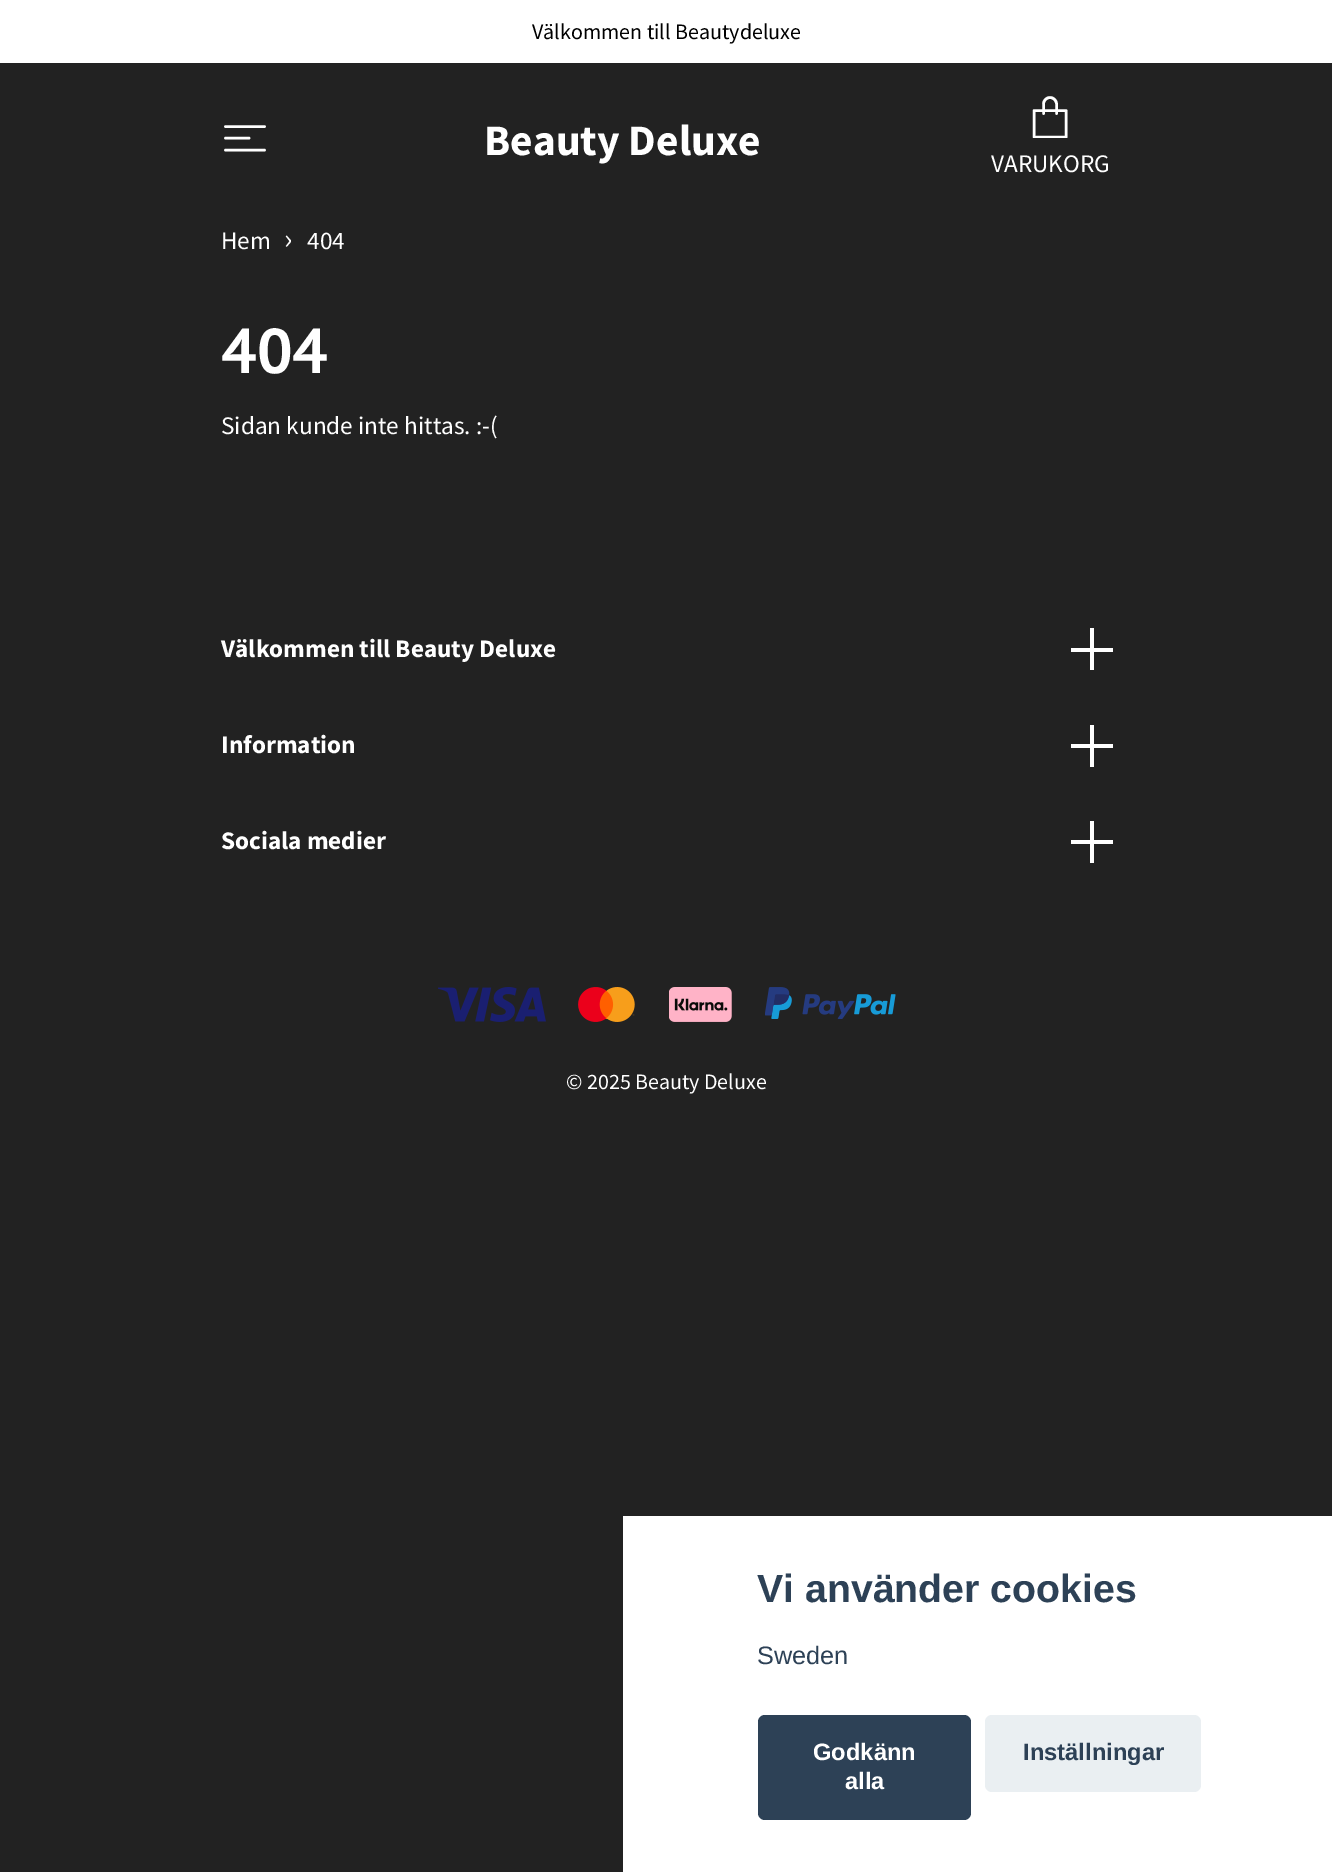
%!PS
<< /PageSize [1332 1872] >> setpagedevice
/mt/moveto load def
/li/lineto load def
/ct/curveto load def
/cp/closepath load def
/fl/fill load def
/st/stroke load def
/gs/gsave load def
/gr/grestore load def
/lw/setlinewidth load def
/co { dup -16 bitshift 255 div exch dup -8 bitshift 255 and 255 div exch 255 and 255 div setrgbcolor } def
/fn { [ exch dup neg 0 0 3 -1 roll 0 0 ] selectfont } def
/tx { co fn moveto show } def
/bx { co rectfill } def
/rr { 5 dict begin { /r /h /w /y /x } { exch def } forall
  x r add y moveto x w add y 2 copy h add r arct x w add y h add x 1 index r arct
  x y h add x y r arct x y 2 copy exch w add exch r arct closepath end } def
/im { 5 dict begin { /h /w /y /x /name } { exch def } forall
  gsave x y translate w h scale
  w h 8 [w 0 0 h 0 0] name (r) file false 3 colorimage grestore end } def
0 1872 translate 1 -1 scale
4 setmiterlimit
0 0 1332 1872 16#222222 bx
0 0 1332 63 16#FFFFFF bx
2.6 lw
1 setlinecap
1 setlinejoin
225.5 126.5 mt 264.5 126.5 li 225.5 138 mt 249 138 li 225.5 150 mt 264.5 150 li st
gs
1029 96 42 42 rectclip
1034 110.5 mt 1066 110.5 li 1066 137 li 1034 137 li cp st
gr
1043.5 113.5 mt 1043.5 104 li 1043.5 100.5 1046.5 97.5 1050 97.5 ct 1053.5 97.5 1056.5 100.5 1056.5 104 ct 1056.5 113.5 li st
1090 628 4 42 16#FFFFFF bx
1071 648 42 4 16#FFFFFF bx
1090 725 4 42 16#FFFFFF bx
1071 744 42 4 16#FFFFFF bx
1090 821 4 42 16#FFFFFF bx
1071 840 42 4 16#FFFFFF bx
(media/1.raw) 438 987 108 35 im
(media/2.raw) 578 987 57 35 im
(media/3.raw) 669 987 63 35 im
(media/4.raw) 765 987 131 32 im
623 1516 709 356 16#FFFFFF bx
16#2D4156 co
758 1715 213 105 7 rr fl
16#EAEFF2 co
985 1715 216 77 7 rr fl
(Välkommen till Beautydeluxe) 532 39 /SourceSansPro-Regular 22 16#000000 tx
(Beauty Deluxe) 484 155 /SourceSansPro-Bold 43.5 16#FFFFFF tx
(VARUKORG) 991 172 /SourceSansPro-Regular 25.25 16#FFFFFF tx
(Hem) 221 249 /SourceSansPro-Regular 25.25 16#FFFFFF tx
(›) 284 249 /SourceSansPro-Regular 31 16#FFFFFF tx
(404) 307 249 /SourceSansPro-Regular 25.25 16#FFFFFF tx
(404) 221 373 /PTSans-Bold 63 16#FFFFFF tx
(Sidan kunde inte hittas. :-\() 221 434 /SourceSansPro-Regular 25.25 16#FFFFFF tx
(Välkommen till Beauty Deluxe) 221 657 /SourceSansPro-Bold 25.25 16#FFFFFF tx
(Information) 221 753 /SourceSansPro-Bold 25.25 16#FFFFFF tx
(Sociala medier) 221 849 /SourceSansPro-Bold 25.25 16#FFFFFF tx
(© 2025 Beauty Deluxe) 566 1089 /SourceSansPro-Regular 22 16#FFFFFF tx
(Vi använder cookies) 757 1602 /LiberationSans-Bold 39.25 16#2D4156 tx
(Sweden) 757 1664 /LiberationSans-Regular 25.25 16#2D4156 tx
(Godkänn) 813 1760 /LiberationSans-Bold 23.75 16#FFFFFF tx
(alla) 845 1789 /LiberationSans-Bold 23.75 16#FFFFFF tx
(Inställningar) 1023 1760 /LiberationSans-Bold 23.75 16#2D4156 tx
showpage
